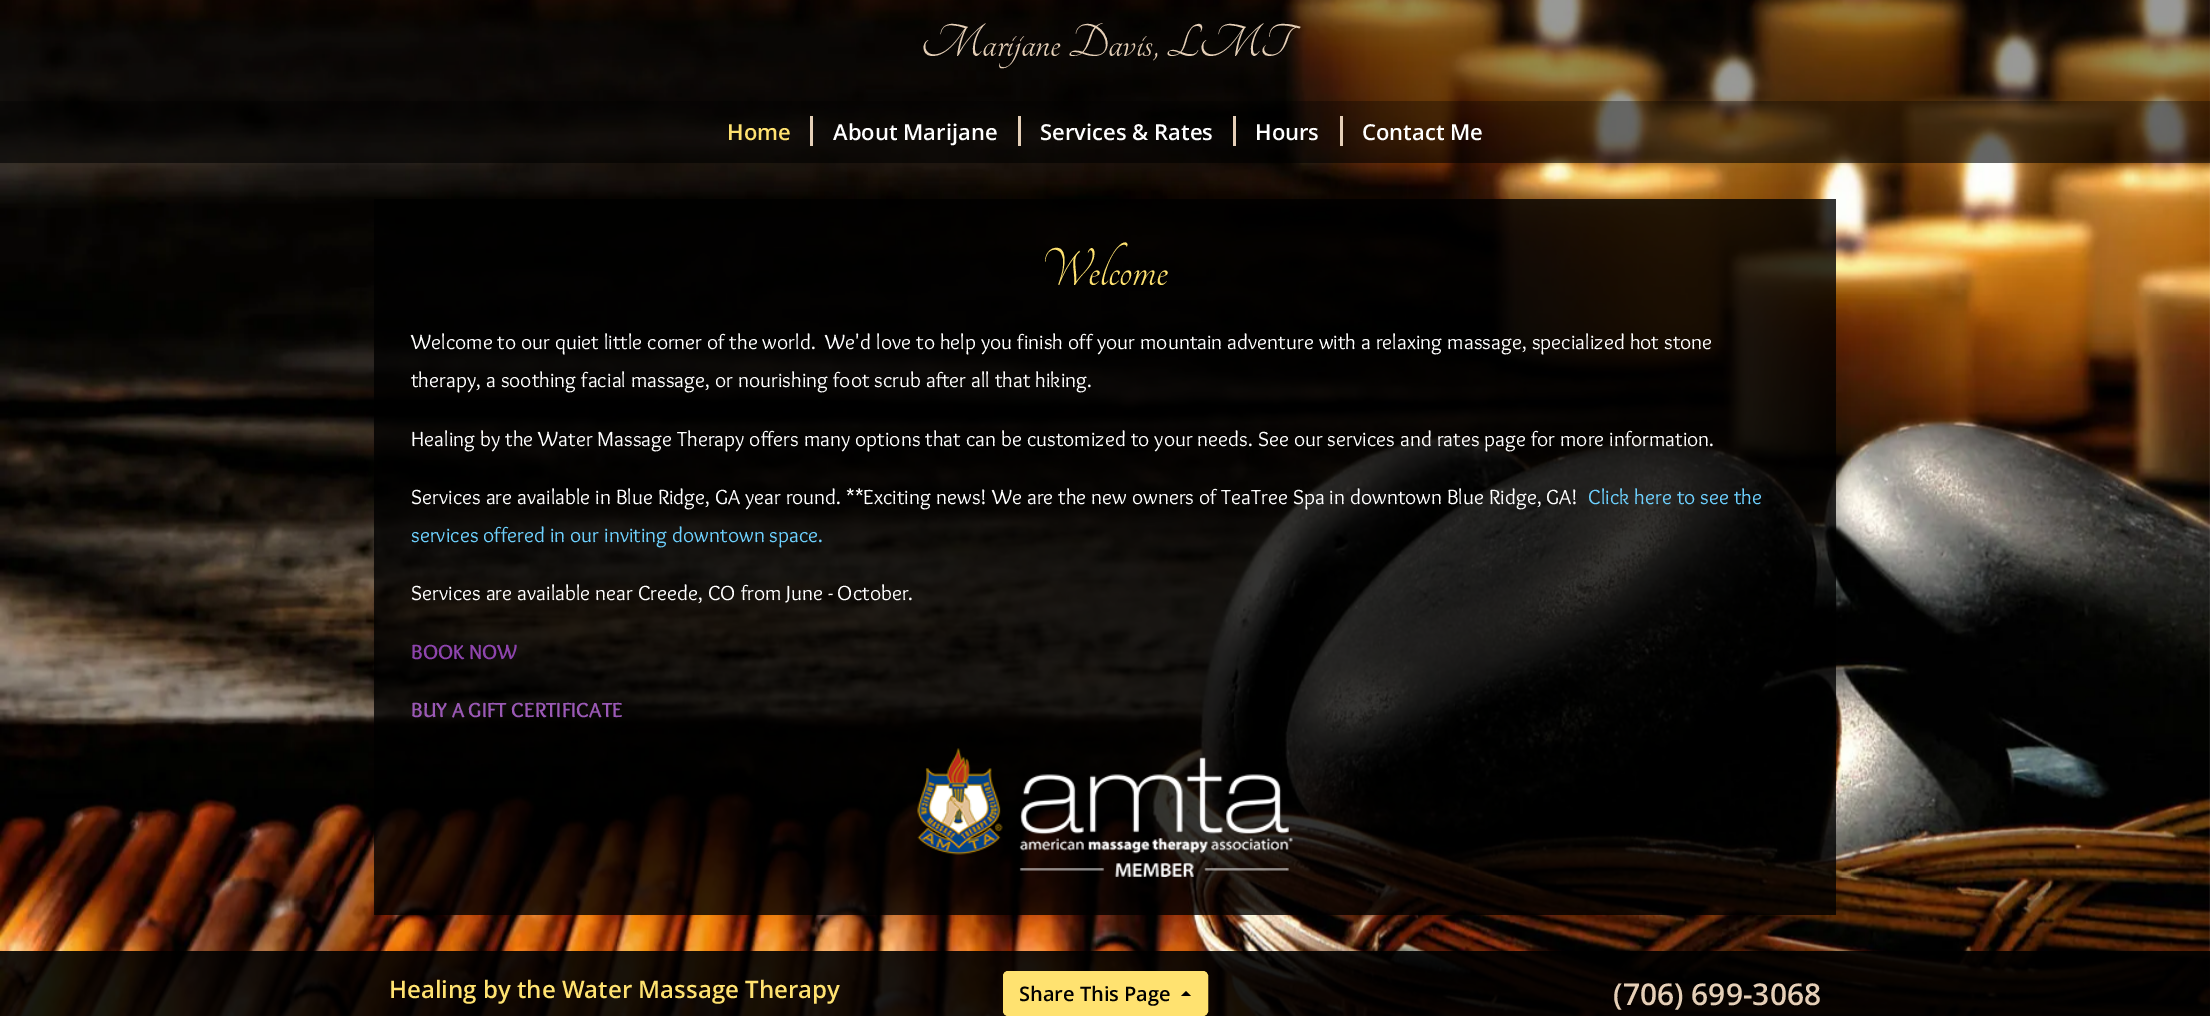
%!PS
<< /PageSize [2210 1016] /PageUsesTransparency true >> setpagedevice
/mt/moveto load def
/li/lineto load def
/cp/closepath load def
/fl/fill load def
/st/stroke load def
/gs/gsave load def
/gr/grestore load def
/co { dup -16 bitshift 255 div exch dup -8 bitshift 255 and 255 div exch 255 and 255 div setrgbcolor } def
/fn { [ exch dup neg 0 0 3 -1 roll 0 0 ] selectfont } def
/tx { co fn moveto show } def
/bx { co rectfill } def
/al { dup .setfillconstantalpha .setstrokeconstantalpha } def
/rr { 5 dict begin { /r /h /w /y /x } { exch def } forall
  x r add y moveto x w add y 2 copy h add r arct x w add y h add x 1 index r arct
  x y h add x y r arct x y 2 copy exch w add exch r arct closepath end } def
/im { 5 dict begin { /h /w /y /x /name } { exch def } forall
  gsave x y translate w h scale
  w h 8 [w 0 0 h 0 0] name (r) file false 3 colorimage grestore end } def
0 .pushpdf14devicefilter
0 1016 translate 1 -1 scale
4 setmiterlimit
0 0 2210 1016 16#FFFFFF bx
(media/1.raw) 0 0 2210 1016 im
0.4 al
0 0 2210 101 16#000000 bx
0.6 al
0 101 2210 62 16#000000 bx
1 al
810 116 3 30 16#E5CFB7 bx
1018 116 3 30 16#E5CFB7 bx
1233 116 3 30 16#E5CFB7 bx
1340 116 3 30 16#E5CFB7 bx
0.8 al
374 199 1462 716 16#000000 bx
1 al
(media/2.raw) 917 748 376 129 im
0.9 al
0 951 2210 65 16#000000 bx
1 al
16#FFE270 co
1003.5 971.5 204 44 4.5 rr gs fl gr
st
16#000000 co
1191 996 mt 1181 996 li 1186 991 li cp fl
(Marijane Davis, LMT) 921 56 /Tangerine-Regular 50 16#E5CFB7 tx
(Home) 727 140 /OpenSans-SemiBold 22 16#FFE270 tx
(About Marijane) 833 140 /OpenSans-SemiBold 22 16#FFFFFF tx
(Services & Rates) 1040 140 /OpenSans-SemiBold 22 16#FFFFFF tx
(Hours) 1255 140 /OpenSans-SemiBold 22 16#FFFFFF tx
(Contact Me) 1362 140 /OpenSans-SemiBold 22 16#FFFFFF tx
(Welcome) 1041 285 /Tangerine-Regular 57.5 16#FFE270 tx
(Welcome to our quiet little corner of the world.  We'd love to help you finish off your mountain adventure with a relaxing massage, specialized hot stone) 411 349 /Overlock-Regular 21.25 16#FFFFFF tx
(therapy, a soothing facial massage, or nourishing foot scrub after all that hiking.) 411 387 /Overlock-Regular 21.25 16#FFFFFF tx
(Healing by the Water Massage Therapy offers many options that can be customized to your needs. See our services and rates page for more information.) 411 446 /Overlock-Regular 21.25 16#FFFFFF tx
(Services are available in Blue Ridge, GA year round. **Exciting news! We are the new owners of TeaTree Spa in downtown Blue Ridge, GA!) 411 504 /Overlock-Regular 21.25 16#FFFFFF tx
(Click here to see the) 1588 504 /Overlock-Regular 21.25 16#6DD1FF tx
(services offered in our inviting downtown space.) 411 542 /Overlock-Regular 21.25 16#6DD1FF tx
(Services are available near Creede, CO from June - October.) 411 600 /Overlock-Regular 21.25 16#FFFFFF tx
(BOOK NOW) 411 659 /Overlock-Bold 21.25 16#8E44AD tx
(BUY A GIFT CERTIFICATE) 411 717 /Overlock-Bold 21.25 16#9B59B6 tx
(Healing by the Water Massage Therapy) 389 998 /OpenSans-SemiBold 24 16#FFE270 tx
(Share This Page) 1019 1001 /OpenSans-SemiBold 20 16#000000 tx
(\(706\) 699-3068) 1613 1005 /OpenSans-SemiBold 30 16#E5CFB7 tx
.poppdf14devicefilter showpage
